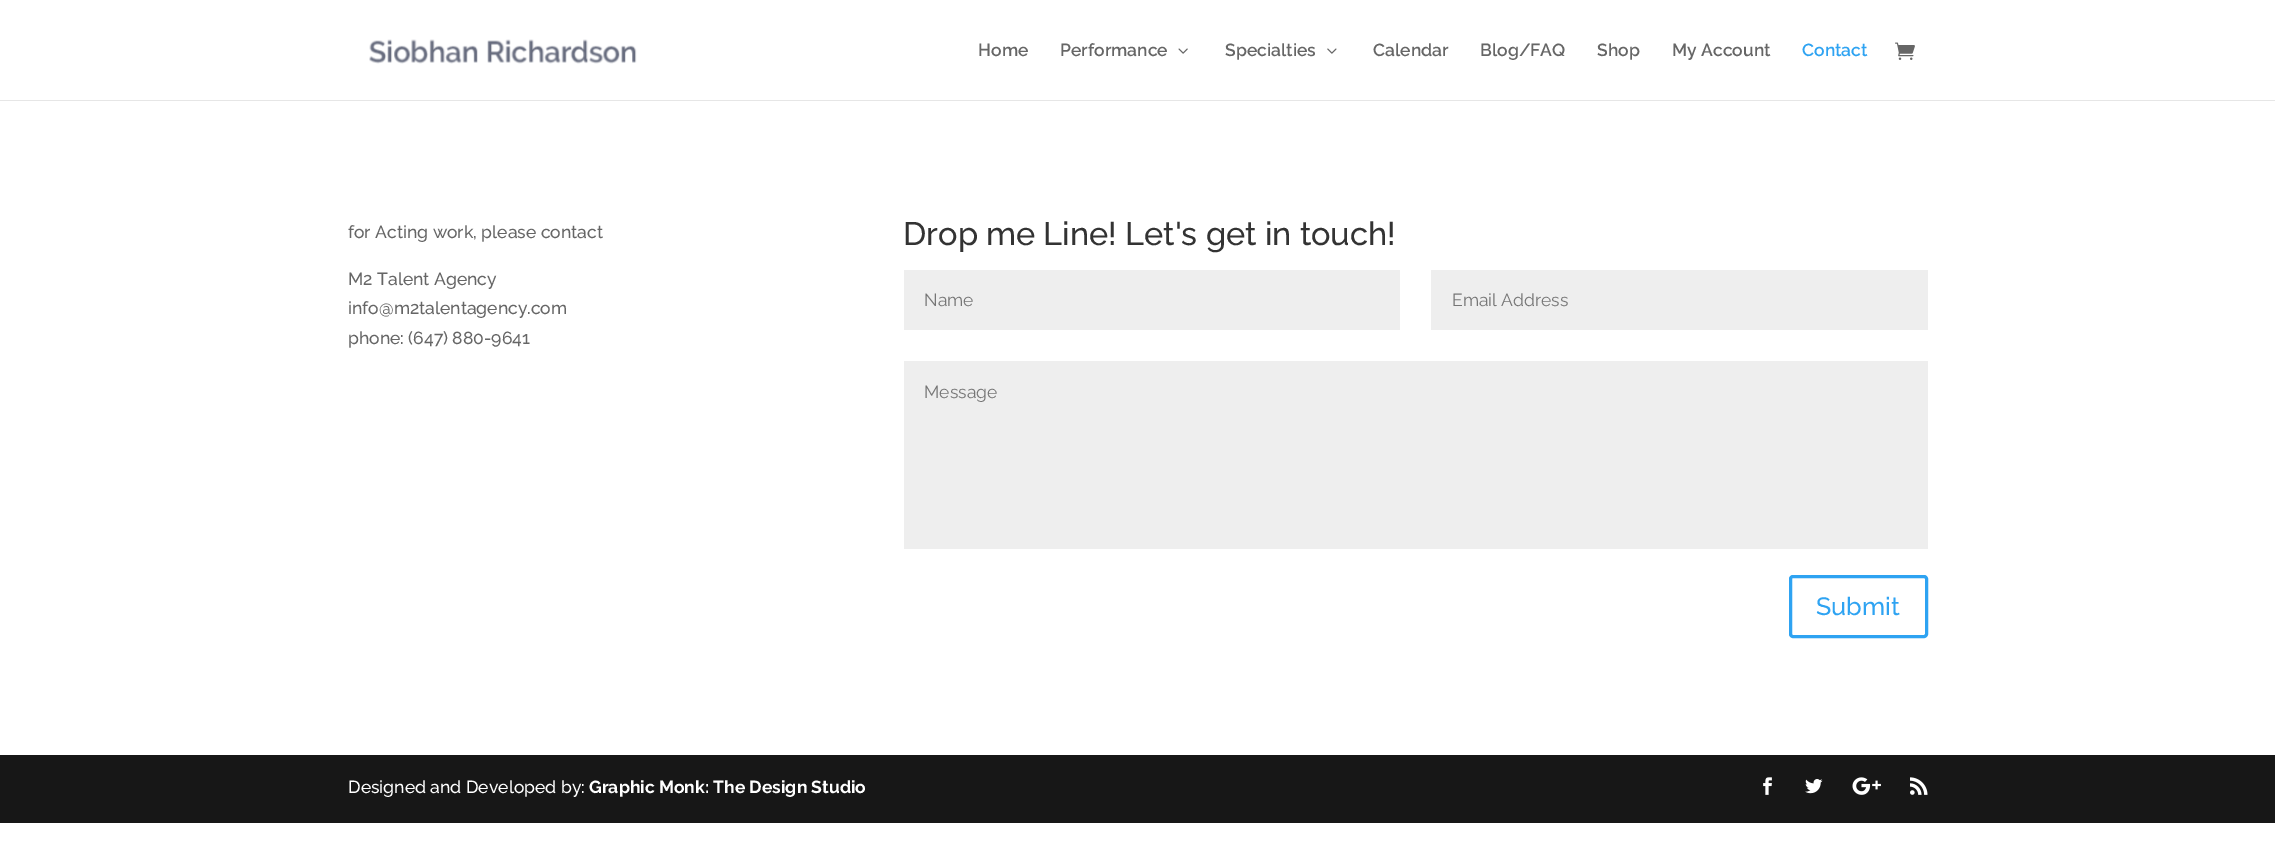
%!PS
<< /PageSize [2275 848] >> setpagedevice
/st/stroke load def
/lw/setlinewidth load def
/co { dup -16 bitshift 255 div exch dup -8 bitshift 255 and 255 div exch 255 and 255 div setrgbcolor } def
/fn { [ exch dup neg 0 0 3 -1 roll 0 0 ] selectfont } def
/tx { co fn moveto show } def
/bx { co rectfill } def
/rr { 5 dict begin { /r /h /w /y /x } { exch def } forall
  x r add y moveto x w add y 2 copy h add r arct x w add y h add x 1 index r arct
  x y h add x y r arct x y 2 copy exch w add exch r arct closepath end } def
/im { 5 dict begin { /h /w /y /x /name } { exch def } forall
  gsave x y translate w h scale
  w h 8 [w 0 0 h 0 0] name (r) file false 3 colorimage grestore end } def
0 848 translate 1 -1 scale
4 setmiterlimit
0 0 2275 848 16#FFFFFF bx
0 100 2275 1 16#E6E6E6 bx
(media/1.raw) 369 39 268 25 im
(media/2.raw) 1178 48 10 6 im
(media/3.raw) 1327 48 10 6 im
(media/4.raw) 1895 42 20 18 im
904 270 496 60 16#EEEEEE bx
1431 270 497 60 16#EEEEEE bx
904 361 1024 188 16#EEEEEE bx
16#2EA3F2 co
3 lw
1790.5 576.5 136 60 2.5 rr st
0 755 2275 68 16#171717 bx
(media/5.raw) 1763 777 9 18 im
(media/6.raw) 1805 779 18 15 im
(media/7.raw) 1852 777 29 18 im
(media/8.raw) 1910 777 18 18 im
(Home) 978 56 /Raleway-SemiBold 17.5 16#666666 tx
(Performance) 1060 56 /Raleway-SemiBold 17.5 16#666666 tx
(Specialties) 1225 56 /Raleway-SemiBold 17.5 16#666666 tx
(Calendar) 1373 56 /Raleway-SemiBold 17.5 16#666666 tx
(Blog/FAQ) 1480 56 /Raleway-SemiBold 17.5 16#666666 tx
(Shop) 1597 56 /Raleway-SemiBold 17.5 16#666666 tx
(My Account) 1672 56 /Raleway-SemiBold 17.5 16#666666 tx
(Contact) 1802 56 /Raleway-SemiBold 17.5 16#2EA3F2 tx
(for Acting work, please contact) 348 238 /Raleway-Medium 17.5 16#666666 tx
(M2 Talent Agency) 348 285 /Raleway-Medium 17.5 16#666666 tx
(info@m2talentagency.com) 348 314 /Raleway-Medium 17.5 16#666666 tx
(phone: \(647\) 880-9641) 348 344 /Raleway-Medium 17.5 16#666666 tx
(Drop me Line! Let's get in touch!) 903 245 /Raleway-Medium 32.5 16#333333 tx
(Name) 924 306 /Raleway-Regular 17.5 16#757575 tx
(Email Address) 1452 306 /Raleway-Regular 17.5 16#757575 tx
(Message) 924 398 /Raleway-Regular 17.5 16#757575 tx
(Submit) 1816 615 /Raleway-Medium 25 16#2EA3F2 tx
(Designed and Developed by:) 348 793 /Raleway-Medium 17.5 16#FFFFFF tx
(Graphic Monk: The Design Studio) 589 793 /Raleway-Bold 17.5 16#FFFFFF tx
showpage
